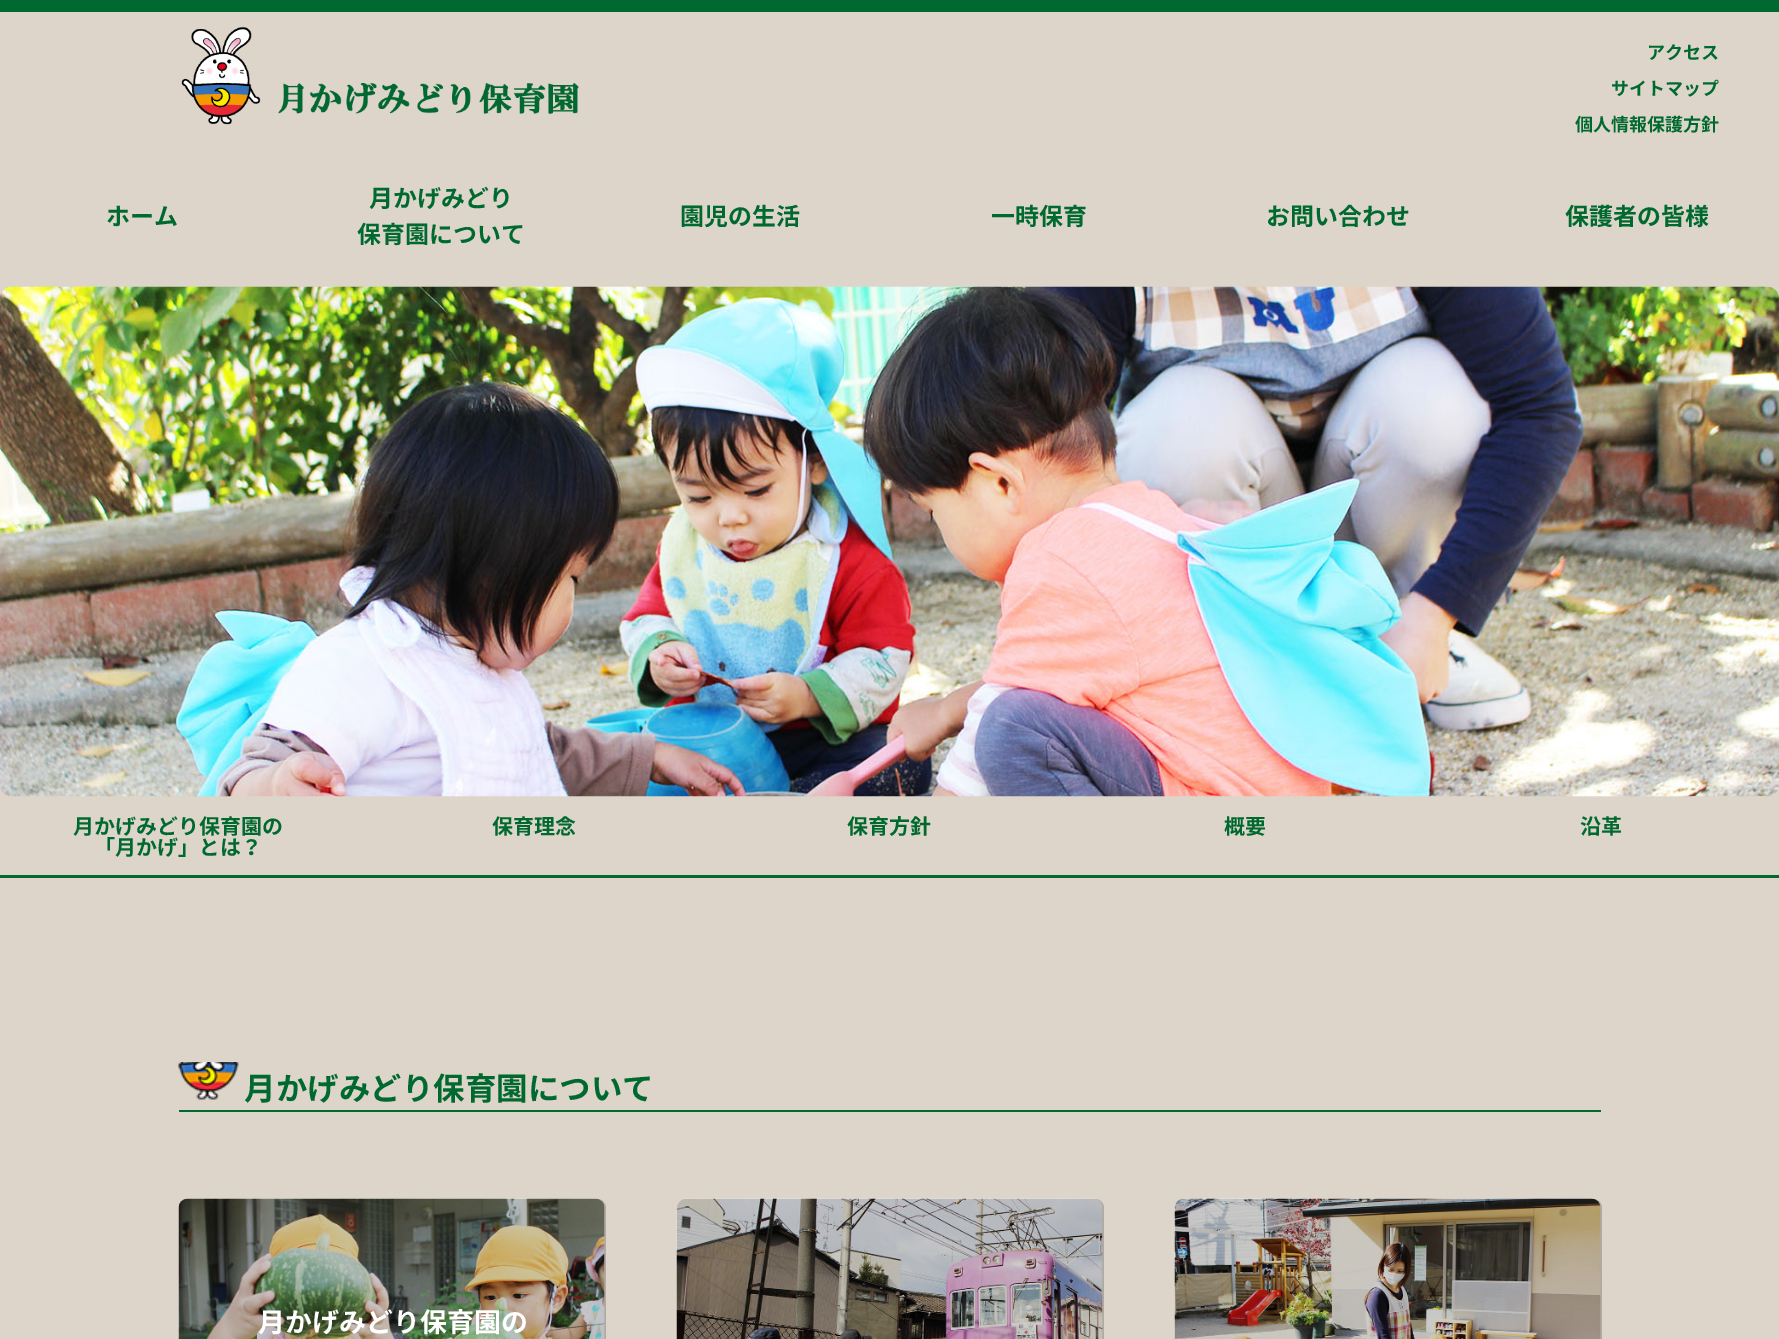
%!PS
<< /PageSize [1779 1339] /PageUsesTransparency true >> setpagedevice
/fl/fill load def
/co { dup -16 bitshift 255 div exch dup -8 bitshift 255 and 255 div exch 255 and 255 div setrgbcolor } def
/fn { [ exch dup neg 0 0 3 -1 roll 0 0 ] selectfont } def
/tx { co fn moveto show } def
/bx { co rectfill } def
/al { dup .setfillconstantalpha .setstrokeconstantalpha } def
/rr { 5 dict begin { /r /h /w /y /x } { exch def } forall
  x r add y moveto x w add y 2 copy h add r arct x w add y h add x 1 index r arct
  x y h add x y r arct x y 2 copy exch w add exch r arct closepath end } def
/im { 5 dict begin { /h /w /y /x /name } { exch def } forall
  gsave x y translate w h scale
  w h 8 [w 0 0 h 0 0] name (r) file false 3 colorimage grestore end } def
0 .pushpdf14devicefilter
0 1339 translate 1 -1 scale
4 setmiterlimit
0 0 1779 1339 16#DDD5CA bx
0 0 1779 12 16#006930 bx
(media/1.raw) 181 26 398 99 im
(media/2.raw) 0 286 1779 511 im
0 875 1779 3 16#006930 bx
179 1110 1422 2 16#006930 bx
(media/3.raw) 178 1062 61 38 im
(media/4.raw) 178 1198 427 141 im
0.2 al
16#000000 co
179 1199 427 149 9 rr fl
1 al
(media/5.raw) 676 1198 427 141 im
0.2 al
677 1199 427 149 9 rr fl
1 al
(media/6.raw) 1174 1198 427 141 im
0.2 al
1175 1199 427 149 9 rr fl
1 al
(アクセス) 1647 59 /NotoSansJP-Bold 18 16#006930 tx
(サイトマップ) 1611 95 /NotoSansJP-Bold 18 16#006930 tx
(個人情報保護方針) 1575 131 /NotoSansJP-Bold 18 16#006930 tx
(ホーム) 106 225 /NotoSansJP-Bold 24 16#006930 tx
(月かげみどり) 369 207 /NotoSansJP-Bold 24 16#006930 tx
(保育園について) 357 243 /NotoSansJP-Bold 24 16#006930 tx
(園児の生活) 680 225 /NotoSansJP-Bold 24 16#006930 tx
(一時保育) 991 225 /NotoSansJP-Bold 24 16#006930 tx
(お問い合わせ) 1266 225 /NotoSansJP-Bold 24 16#006930 tx
(保護者の皆様) 1565 225 /NotoSansJP-Bold 24 16#006930 tx
(月かげみどり保育園の) 73 834 /NotoSansJP-Bold 21 16#006930 tx
(「月かげ」とは？) 94 855 /NotoSansJP-Bold 21 16#006930 tx
(保育理念) 492 834 /NotoSansJP-Bold 21 16#006930 tx
(保育方針) 847 834 /NotoSansJP-Bold 21 16#006930 tx
(概要) 1224 834 /NotoSansJP-Bold 21 16#006930 tx
(沿革) 1580 834 /NotoSansJP-Bold 21 16#006930 tx
(月かげみどり保育園について) 244 1100 /NotoSansJP-Bold 31.5 16#006930 tx
(月かげみどり保育園の) 258 1332 /NotoSansJP-Bold 27 16#FFFFFF tx
.poppdf14devicefilter showpage
